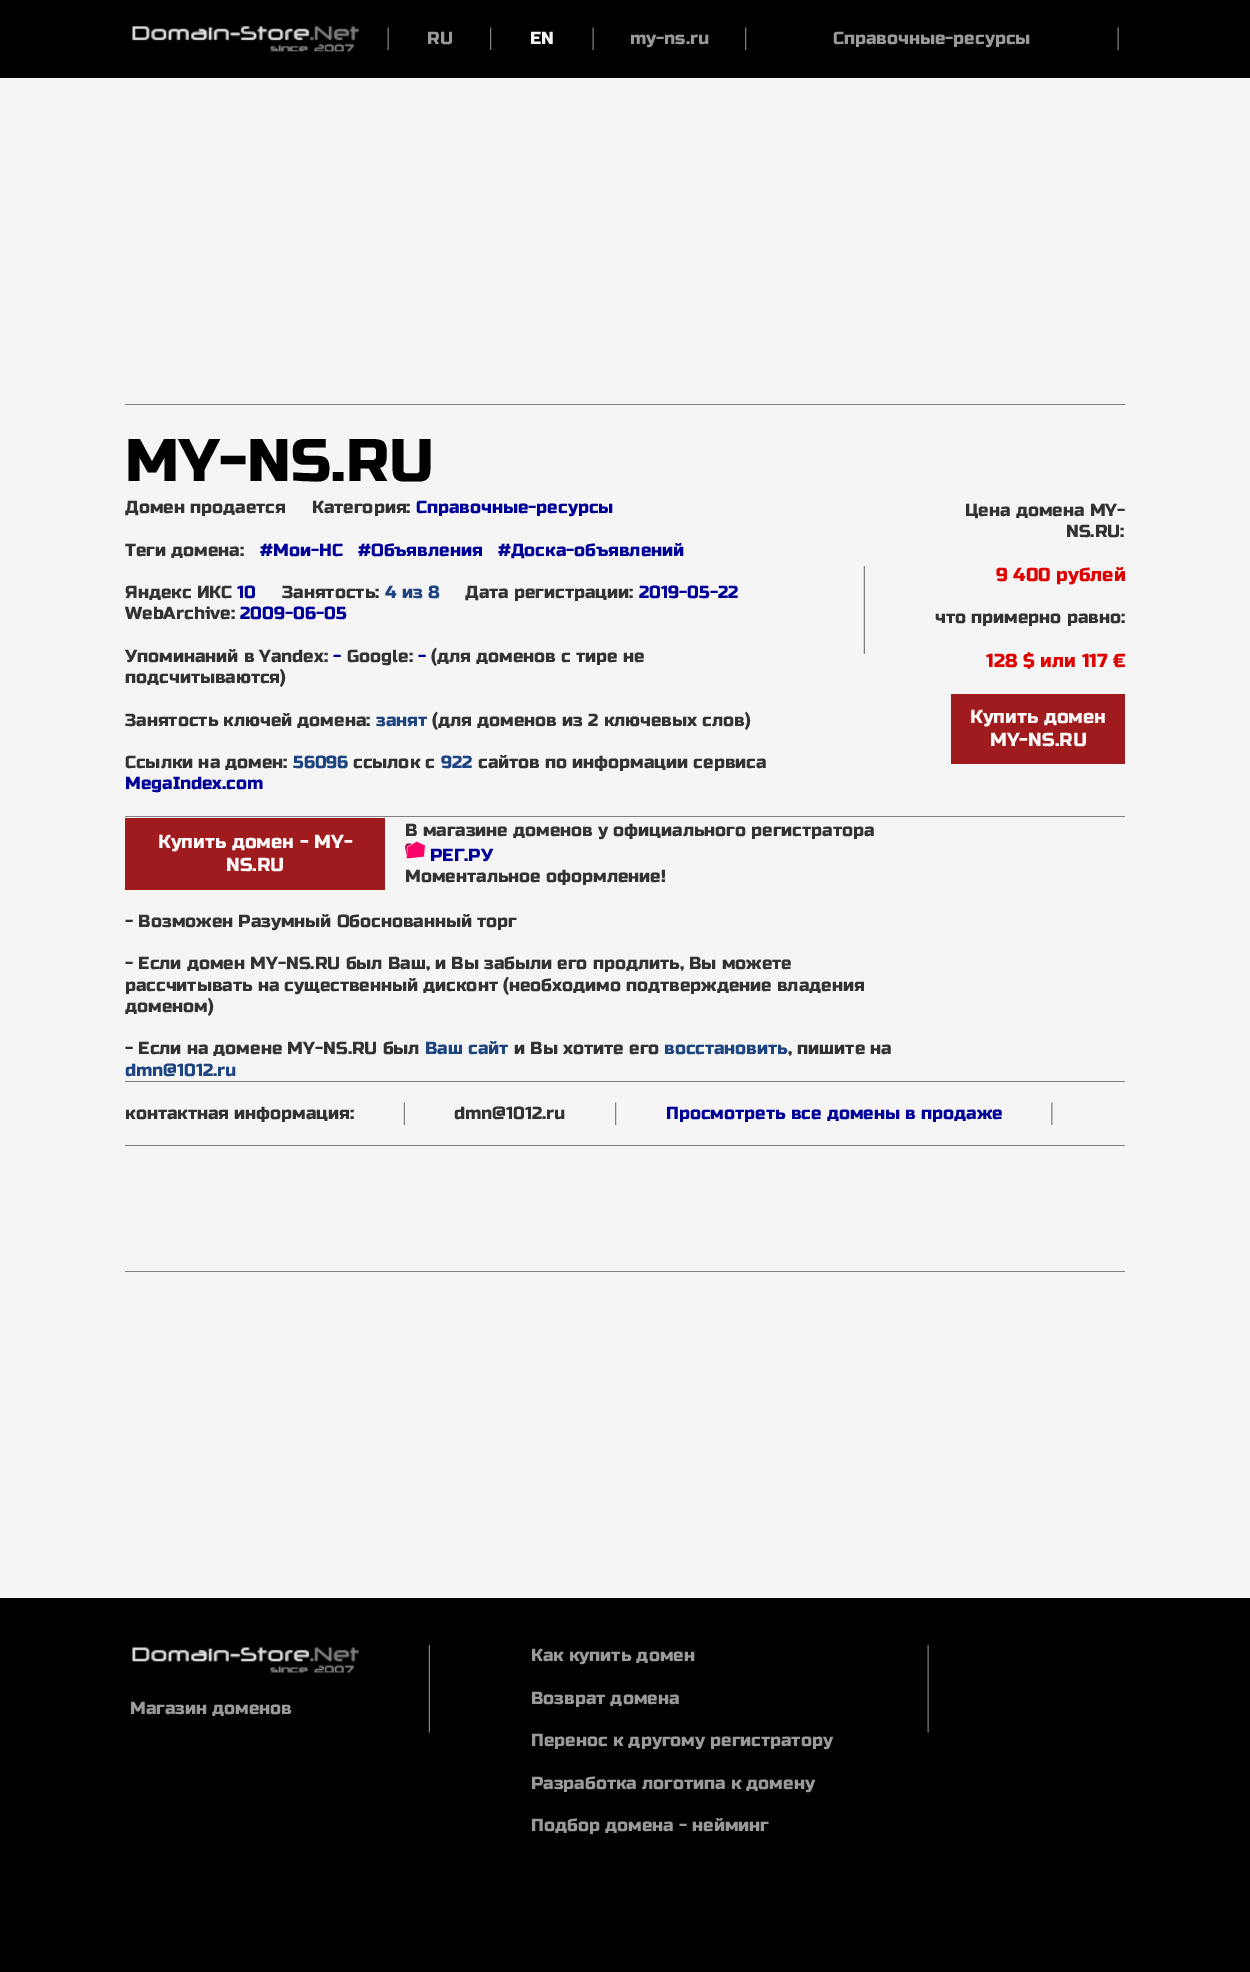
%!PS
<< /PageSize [1250 1972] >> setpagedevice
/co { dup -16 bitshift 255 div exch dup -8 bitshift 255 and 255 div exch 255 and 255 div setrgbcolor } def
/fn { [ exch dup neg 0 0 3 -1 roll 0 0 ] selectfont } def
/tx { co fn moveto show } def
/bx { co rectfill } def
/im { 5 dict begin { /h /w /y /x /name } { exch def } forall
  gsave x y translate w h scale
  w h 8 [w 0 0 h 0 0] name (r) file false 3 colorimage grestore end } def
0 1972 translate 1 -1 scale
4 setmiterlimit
0 0 1250 1972 16#000000 bx
(media/1.raw) 132 26 227 26 im
(media/2.raw) 387 27 2 23 im
(media/3.raw) 490 27 2 23 im
(media/2.raw) 592 27 2 23 im
(media/3.raw) 745 27 2 23 im
(media/2.raw) 1117 27 2 23 im
0 78 1250 1520 16#F5F5F5 bx
125 404 1000 1 16#7F7F7F bx
(media/4.raw) 863 566 2 88 im
951 694 174 70 16#A01B1E bx
125 816 1000 1 16#7F7F7F bx
125 818 260 72 16#A01B1E bx
(media/5.raw) 405 841 20 18 im
125 1081 1000 1 16#7F7F7F bx
(media/6.raw) 403 1102 2 23 im
(media/7.raw) 615 1102 2 23 im
(media/8.raw) 1051 1102 2 23 im
125 1145 1000 1 16#7F7F7F bx
125 1271 1000 1 16#7F7F7F bx
(media/9.raw) 132 1647 227 26 im
(media/10.raw) 428 1645 2 88 im
(media/11.raw) 927 1645 2 88 im
(RU) 427 44 /RussoOne-Regular 17.5 16#999999 tx
(EN) 530 44 /RussoOne-Regular 17.5 16#F4F4F4 tx
(my-ns.ru) 630 44 /RussoOne-Regular 17.5 16#999999 tx
(Справочные-ресурсы) 833 44 /RussoOne-Regular 17.5 16#999999 tx
(MY-NS.RU) 125 481 /RussoOne-Regular 60 16#000000 tx
(Домен продается) 125 513 /RussoOne-Regular 17.5 16#333333 tx
(Категория:) 312 513 /RussoOne-Regular 17.5 16#333333 tx
(Справочные-ресурсы) 416 513 /RussoOne-Regular 17.5 16#000099 tx
(Теги домена:) 125 556 /RussoOne-Regular 17.5 16#333333 tx
(#Мои-НС) 260 556 /RussoOne-Regular 17.5 16#000099 tx
(#Объявления) 358 556 /RussoOne-Regular 17.5 16#000099 tx
(#Доска-объявлений) 498 556 /RussoOne-Regular 17.5 16#000099 tx
(Яндекс ИКС) 125 598 /RussoOne-Regular 17.5 16#333333 tx
(10) 237 598 /RussoOne-Regular 17.5 16#000099 tx
(Занятость:) 282 598 /RussoOne-Regular 17.5 16#333333 tx
(4 из 8) 385 598 /RussoOne-Regular 17.5 16#1E4580 tx
(Дата регистрации:) 465 598 /RussoOne-Regular 17.5 16#333333 tx
(2019-05-22) 639 598 /RussoOne-Regular 17.5 16#000099 tx
(WebArchive:) 125 619 /RussoOne-Regular 17.5 16#333333 tx
(2009-06-05) 240 619 /RussoOne-Regular 17.5 16#000099 tx
(Упоминаний в Yandex:) 125 662 /RussoOne-Regular 17.5 16#333333 tx
(-) 333 662 /RussoOne-Regular 17.5 16#000099 tx
(Google:) 347 662 /RussoOne-Regular 17.5 16#333333 tx
(-) 418 662 /RussoOne-Regular 17.5 16#000099 tx
(\(для доменов с тире не) 431 662 /RussoOne-Regular 17.5 16#333333 tx
(подсчитываются\)) 125 683 /RussoOne-Regular 17.5 16#333333 tx
(Занятость ключей домена:) 125 726 /RussoOne-Regular 17.5 16#333333 tx
(занят) 376 726 /RussoOne-Regular 17.5 16#1E4580 tx
(\(для доменов из 2 ключевых слов\)) 432 726 /RussoOne-Regular 17.5 16#333333 tx
(Ссылки на домен:) 125 768 /RussoOne-Regular 17.5 16#333333 tx
(56096) 293 768 /RussoOne-Regular 17.5 16#1E4580 tx
(ссылок с) 353 768 /RussoOne-Regular 17.5 16#333333 tx
(922) 441 768 /RussoOne-Regular 17.5 16#1E4580 tx
(сайтов по информации сервиса) 478 768 /RussoOne-Regular 17.5 16#333333 tx
(MegaIndex.com) 125 789 /RussoOne-Regular 17.5 16#000099 tx
(Цена домена MY-) 965 516 /RussoOne-Regular 17.5 16#333333 tx
(NS.RU:) 1066 537 /RussoOne-Regular 17.5 16#333333 tx
(9 400 рублей) 996 581 /RussoOne-Regular 18.75 16#DF0000 tx
(что примерно равно:) 935 623 /RussoOne-Regular 17.5 16#333333 tx
(128 $ или 117 €) 986 667 /RussoOne-Regular 18.75 16#DF0000 tx
(Купить домен) 970 723 /RussoOne-Regular 18.75 16#FFF9F9 tx
(MY-NS.RU) 990 746 /RussoOne-Regular 18.75 16#FFF9F9 tx
(Купить домен - MY-) 158 848 /RussoOne-Regular 18.75 16#FFF9F9 tx
(NS.RU) 226 871 /RussoOne-Regular 18.75 16#FFF9F9 tx
(В магазине доменов у официального регистратора) 405 836 /RussoOne-Regular 17.5 16#333333 tx
(РЕГ.РУ) 430 861 /RussoOne-Regular 17.5 16#000099 tx
(Моментальное оформление!) 405 882 /RussoOne-Regular 17.5 16#333333 tx
(- Возможен Разумный Обоснованный торг) 125 927 /RussoOne-Regular 17.5 16#333333 tx
(- Если домен MY-NS.RU был Ваш, и Вы забыли его продлить, Вы можете) 125 969 /RussoOne-Regular 17.5 16#333333 tx
(рассчитывать на существенный дисконт \(необходимо подтверждение владения) 125 991 /RussoOne-Regular 17.5 16#333333 tx
(доменом\)) 125 1012 /RussoOne-Regular 17.5 16#333333 tx
(- Если на домене MY-NS.RU был) 125 1054 /RussoOne-Regular 17.5 16#333333 tx
(Ваш сайт) 425 1054 /RussoOne-Regular 17.5 16#1E4580 tx
(и Вы хотите его) 514 1054 /RussoOne-Regular 17.5 16#333333 tx
(восстановить) 664 1054 /RussoOne-Regular 17.5 16#1E4580 tx
(, пишите на) 788 1054 /RussoOne-Regular 17.5 16#333333 tx
(dmn@1012.ru) 125 1076 /RussoOne-Regular 17.5 16#1E4580 tx
(контактная информация:) 125 1119 /RussoOne-Regular 17.5 16#333333 tx
(dmn@1012.ru) 454 1119 /RussoOne-Regular 17.5 16#333333 tx
(Просмотреть все домены в продаже) 666 1119 /RussoOne-Regular 17.5 16#000099 tx
(Магазин доменов) 130 1714 /RussoOne-Regular 17.5 16#999999 tx
(Как купить домен) 531 1661 /RussoOne-Regular 17.5 16#999999 tx
(Возврат домена) 531 1704 /RussoOne-Regular 17.5 16#999999 tx
(Перенос к другому регистратору) 531 1746 /RussoOne-Regular 17.5 16#999999 tx
(Разработка логотипа к домену) 531 1789 /RussoOne-Regular 17.5 16#999999 tx
(Подбор домена - нейминг) 531 1831 /RussoOne-Regular 17.5 16#999999 tx
showpage
